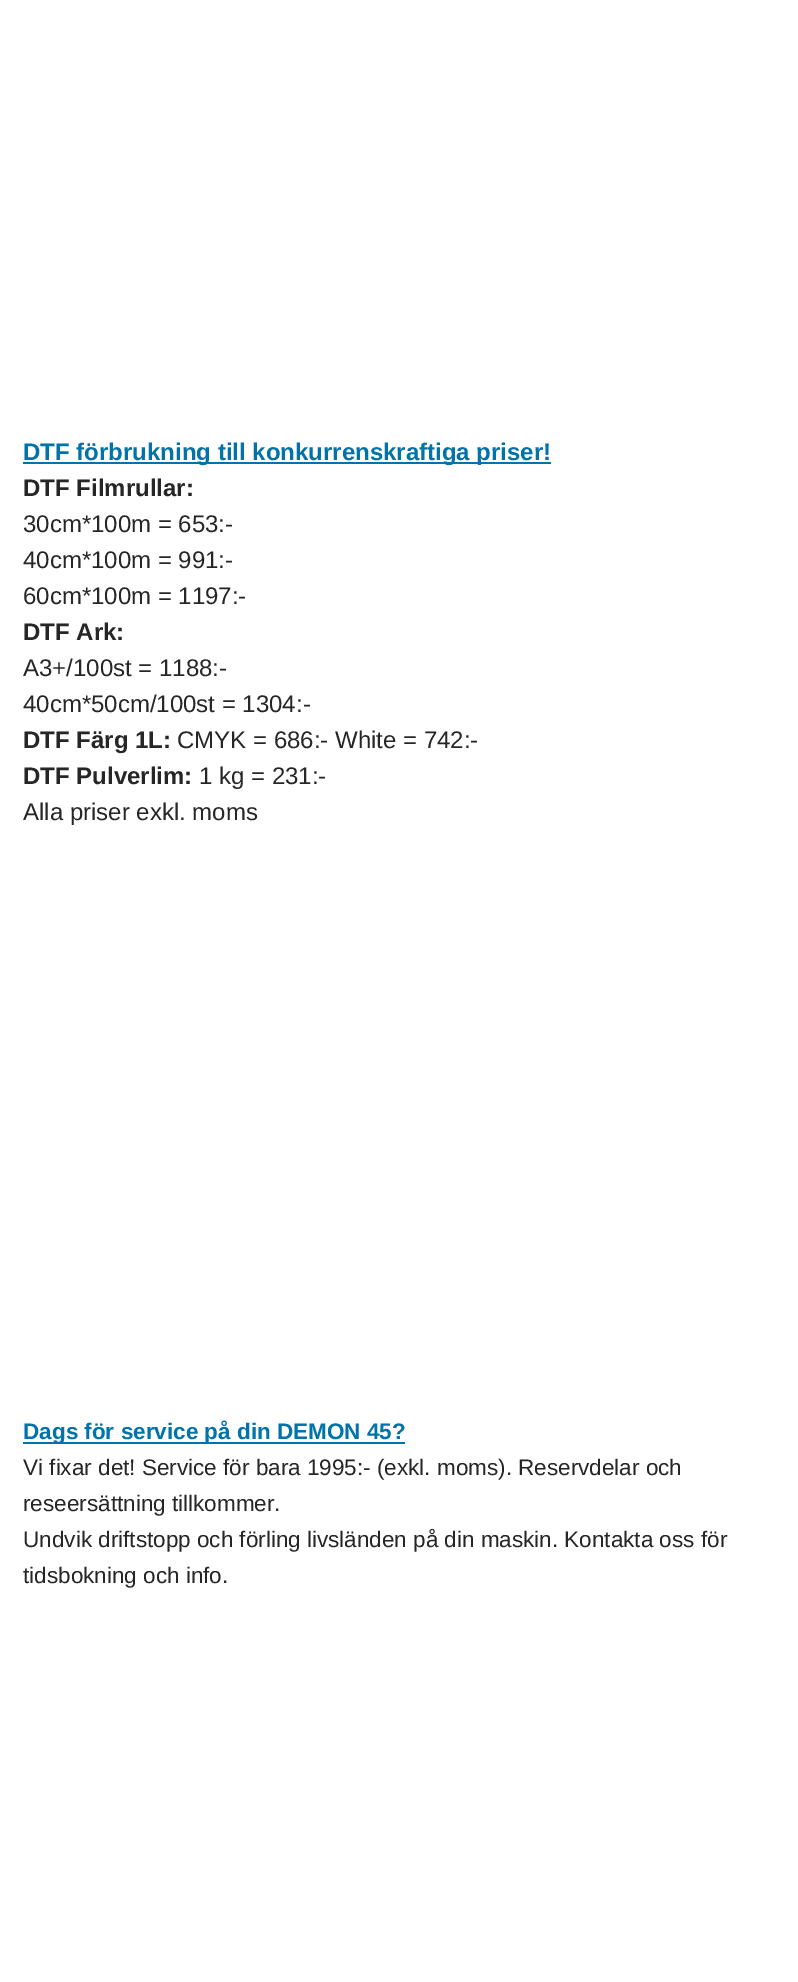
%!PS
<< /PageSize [798 1982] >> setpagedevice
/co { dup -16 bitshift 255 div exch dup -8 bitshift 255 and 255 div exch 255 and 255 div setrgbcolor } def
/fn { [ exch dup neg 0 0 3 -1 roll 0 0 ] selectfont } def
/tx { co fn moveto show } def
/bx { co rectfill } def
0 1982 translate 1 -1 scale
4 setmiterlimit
0 0 798 1982 16#FFFFFF bx
23 462 528 2 16#0073AA bx
23 1442 382 2 16#0073AA bx
(DTF förbrukning till konkurrenskraftiga priser!) 23 460 /LiberationSans-Bold 24 16#0073AA tx
(DTF Filmrullar:) 23 496 /LiberationSans-Bold 24 16#272626 tx
(30cm*100m = 653:-) 23 532 /LiberationSans-Regular 24 16#272626 tx
(40cm*100m = 991:-) 23 568 /LiberationSans-Regular 24 16#272626 tx
(60cm*100m = 1197:-) 23 604 /LiberationSans-Regular 24 16#272626 tx
(DTF Ark:) 23 640 /LiberationSans-Bold 24 16#272626 tx
(A3+/100st = 1188:-) 23 676 /LiberationSans-Regular 24 16#272626 tx
(40cm*50cm/100st = 1304:-) 23 712 /LiberationSans-Regular 24 16#272626 tx
(DTF Färg 1L:) 23 748 /LiberationSans-Bold 24 16#272626 tx
(CMYK = 686:- White = 742:-) 177 748 /LiberationSans-Regular 24 16#272626 tx
(DTF Pulverlim:) 23 784 /LiberationSans-Bold 24 16#272626 tx
(1 kg = 231:-) 199 784 /LiberationSans-Regular 24 16#272626 tx
(Alla priser exkl. moms) 23 820 /LiberationSans-Regular 24 16#272626 tx
(Dags för service på din DEMON 45?) 23 1439 /LiberationSans-Bold 22.5 16#0073AA tx
(Vi fixar det! Service för bara 1995:- \(exkl. moms\). Reservdelar och) 23 1475 /LiberationSans-Regular 22.5 16#272626 tx
(reseersättning tillkommer.) 23 1511 /LiberationSans-Regular 22.5 16#272626 tx
(Undvik driftstopp och förling livsländen på din maskin. Kontakta oss för) 23 1547 /LiberationSans-Regular 22.5 16#272626 tx
(tidsbokning och info.) 23 1583 /LiberationSans-Regular 22.5 16#272626 tx
showpage
